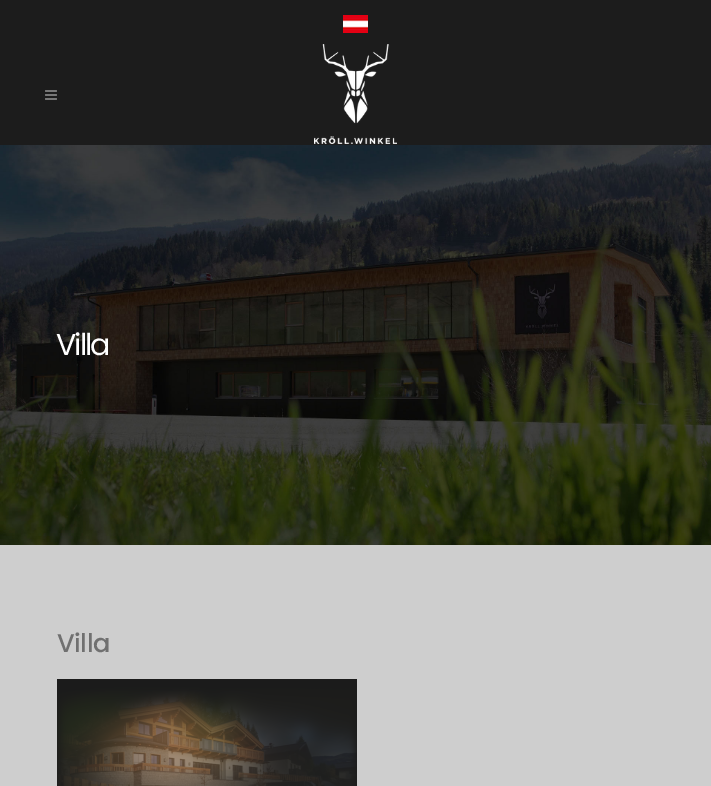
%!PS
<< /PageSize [711 786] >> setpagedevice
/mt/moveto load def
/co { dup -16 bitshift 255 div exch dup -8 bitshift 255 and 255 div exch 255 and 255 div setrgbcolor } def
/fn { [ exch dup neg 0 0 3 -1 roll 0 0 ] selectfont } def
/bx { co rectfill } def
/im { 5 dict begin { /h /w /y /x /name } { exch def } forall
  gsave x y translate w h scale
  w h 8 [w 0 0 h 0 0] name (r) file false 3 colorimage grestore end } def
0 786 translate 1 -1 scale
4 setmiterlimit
0 0 711 786 16#CECECE bx
0 0 711 145 16#1C1C1C bx
(media/1.raw) 45 90 12 10 im
(media/2.raw) 314 44 83 100 im
(media/3.raw) 343 15 25 18 im
(media/4.raw) 0 145 711 400 im
(media/5.raw) 57 679 300 107 im
/Poppins-Regular 30 fn
16#FFFFFF co
56 355 mt -2 0 (Villa) ashow
/Poppins-Medium 25.5 fn
16#707070 co
57 652 mt -.5 0 (Villa) ashow
showpage
